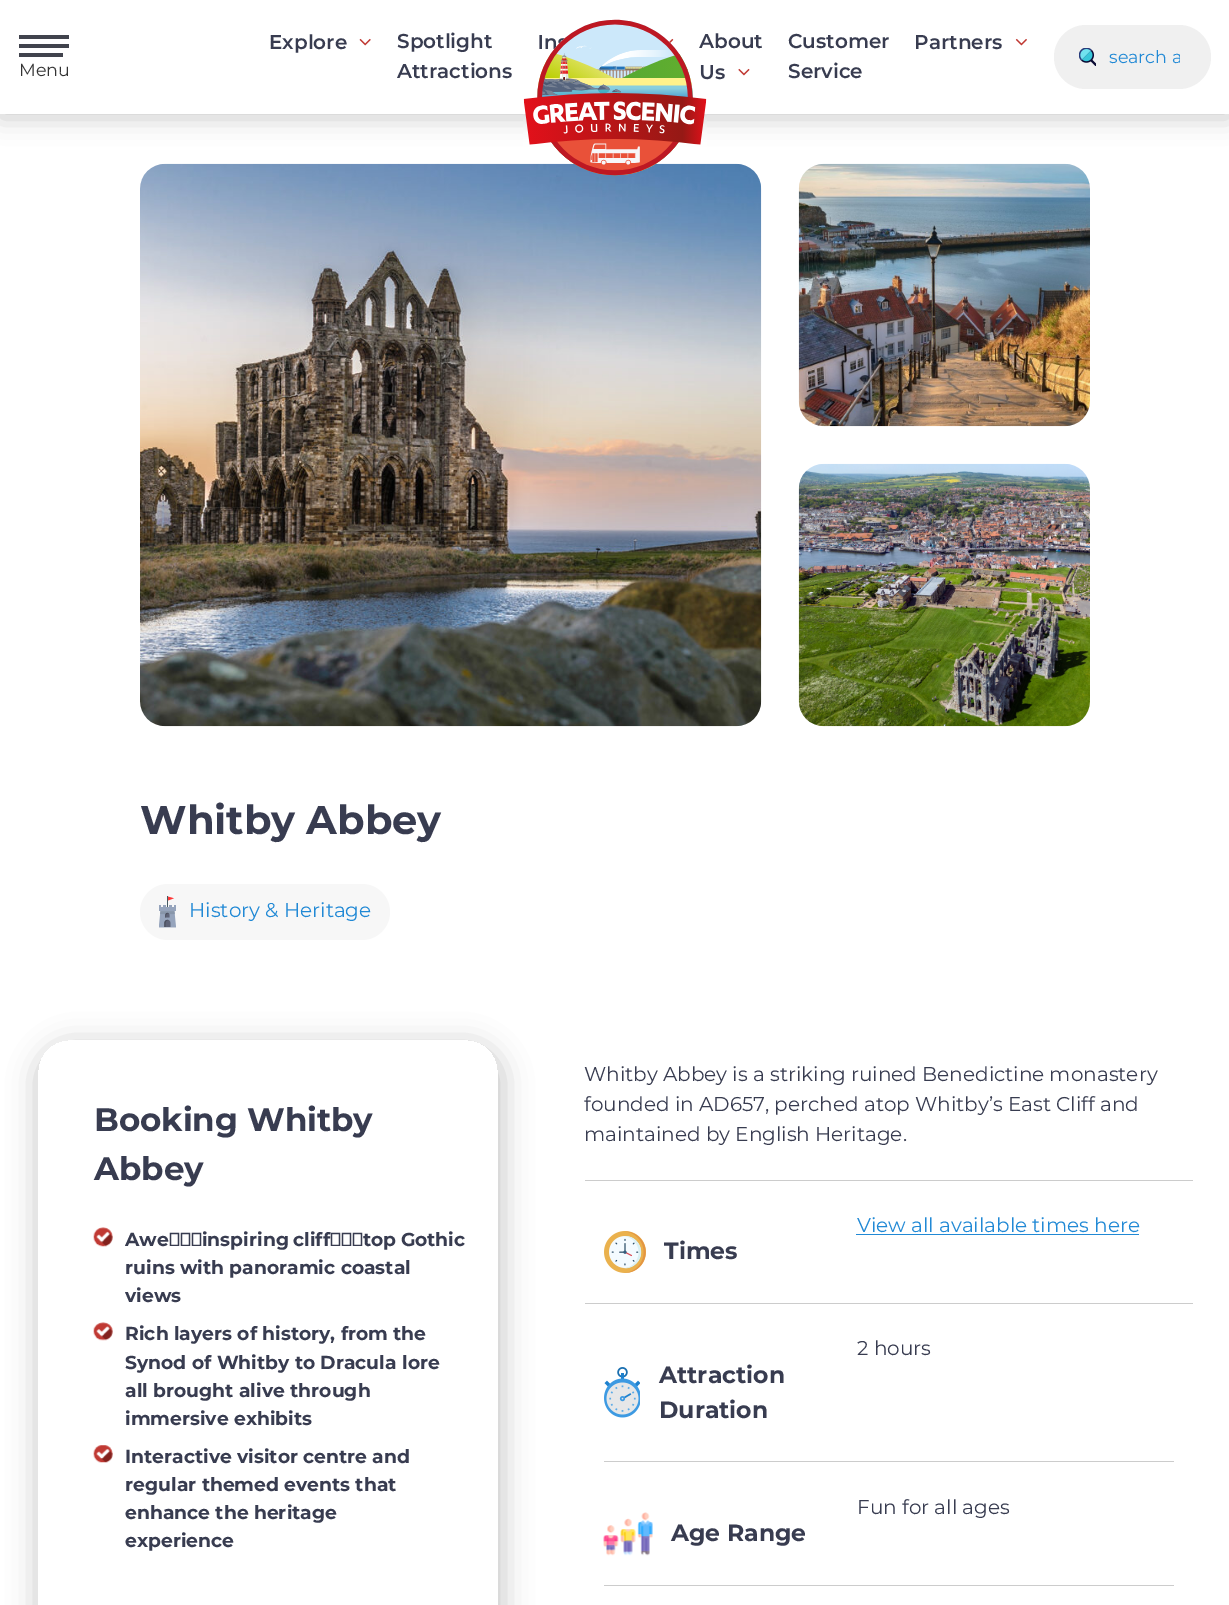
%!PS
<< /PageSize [1229 1605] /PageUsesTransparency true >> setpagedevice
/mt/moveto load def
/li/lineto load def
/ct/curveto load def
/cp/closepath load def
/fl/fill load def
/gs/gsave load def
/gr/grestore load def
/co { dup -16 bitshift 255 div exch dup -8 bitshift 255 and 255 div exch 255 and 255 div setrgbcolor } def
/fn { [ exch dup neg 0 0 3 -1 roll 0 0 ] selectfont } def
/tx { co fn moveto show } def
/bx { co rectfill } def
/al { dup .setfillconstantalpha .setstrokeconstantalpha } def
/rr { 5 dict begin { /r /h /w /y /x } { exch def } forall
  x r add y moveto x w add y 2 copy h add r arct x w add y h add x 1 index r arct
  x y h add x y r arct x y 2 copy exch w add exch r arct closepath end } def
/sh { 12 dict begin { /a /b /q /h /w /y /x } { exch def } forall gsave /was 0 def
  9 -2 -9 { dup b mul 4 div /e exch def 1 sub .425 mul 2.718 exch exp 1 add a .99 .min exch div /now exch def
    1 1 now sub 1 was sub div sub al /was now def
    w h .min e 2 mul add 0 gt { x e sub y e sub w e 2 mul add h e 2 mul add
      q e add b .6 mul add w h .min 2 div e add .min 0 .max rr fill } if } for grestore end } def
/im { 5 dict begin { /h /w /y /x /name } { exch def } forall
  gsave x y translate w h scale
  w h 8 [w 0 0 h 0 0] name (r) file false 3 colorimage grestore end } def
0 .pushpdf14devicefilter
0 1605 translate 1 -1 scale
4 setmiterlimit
0 0 1229 1605 16#FFFFFF bx
16#000000 co
0 4 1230 114 0 12.5 .2 sh
0 0 1229 114 16#FFFFFF bx
(media/2.raw) 359 38 12 8 im
(media/3.raw) 669 38 5 6 im
(media/4.raw) 738 68 12 8 im
(media/5.raw) 1015 38 12 8 im
16#F0F0F0 co
1054 25 157 64 32 rr fl
(media/6.raw) 1079 48 17 18 im
19 35 50 4 16#41434D bx
19 44 50 4 16#41434D bx
19 53 44 4 16#41434D bx
(media/7.raw) 140 163 622 564 im
(media/8.raw) 798 163 292 264 im
(media/9.raw) 798 463 292 264 im
16#F7F7F7 co
140 884 250 56 28 rr fl
(media/10.raw) 159 896 17 32 im
gs
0 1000 mt 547 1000 li 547 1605 li 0 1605 li cp 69 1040 mt 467 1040 li 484 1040 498 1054 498 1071 ct 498 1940 li 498 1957 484 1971 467 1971 ct 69 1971 li 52 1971 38 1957 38 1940 ct 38 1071 li 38 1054 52 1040 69 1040 ct cp eoclip newpath
16#000000 co
36 1043 468 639 35 14 .21 sh
gr
(media/11.raw) 93 1227 20 20 im
(media/12.raw) 93 1322 20 19 im
(media/13.raw) 93 1445 20 18 im
585 1180 608 1 16#CCCCCC bx
856 1234 283 1 16#2189D5 bx
(media/14.raw) 604 1231 42 42 im
585 1303 608 1 16#CCCCCC bx
(media/15.raw) 604 1367 36 51 im
604 1461 570 1 16#CCCCCC bx
(media/16.raw) 603 1512 50 44 im
604 1585 570 1 16#CCCCCC bx
(Explore) 269 49 /Montserrat-SemiBold 20 16#383C50 tx
(Spotlight) 397 48 /Montserrat-SemiBold 20 16#383C50 tx
(Attractions) 397 78 /Montserrat-SemiBold 20 16#383C50 tx
(In) 538 49 /Montserrat-SemiBold 20 16#383C50 tx
(About) 699 48 /Montserrat-SemiBold 20 16#383C50 tx
(Us) 699 79 /Montserrat-SemiBold 20 16#383C50 tx
(media/1.raw) 523 19 184 157 im
(Customer) 788 48 /Montserrat-SemiBold 20 16#383C50 tx
(Service) 788 78 /Montserrat-SemiBold 20 16#383C50 tx
(Partners) 914 49 /Montserrat-SemiBold 20 16#383C50 tx
gs
1109 45 71 23 rectclip
(search a) 1109 63 /Montserrat-Regular 17.5 16#2189D5 tx
gr
(Menu) 19 76 /Montserrat-Regular 17.5 16#333333 tx
(Whitby Abbey) 140 834 /Montserrat-Bold 40 16#383C50 tx
(History & Heritage) 189 917 /Montserrat-Regular 20 16#2189D5 tx
(Booking Whitby) 94 1131 /Montserrat-Bold 32.5 16#383C50 tx
(Abbey) 94 1180 /Montserrat-Bold 32.5 16#383C50 tx
/Montserrat-Bold 18.75 fn
125 1246 mt -1 0 32 (Awe‑inspiring cliff‑top Gothic) widthshow
(ruins with panoramic coastal) 125 1274 /Montserrat-Bold 18.75 16#383C50 tx
(views) 125 1302 /Montserrat-Bold 18.75 16#383C50 tx
(Rich layers of history, from the) 125 1340 /Montserrat-Bold 18.75 16#383C50 tx
(Synod of Whitby to Dracula lore) 125 1369 /Montserrat-Bold 18.75 16#383C50 tx
(all brought alive through) 125 1397 /Montserrat-Bold 18.75 16#383C50 tx
(immersive exhibits) 125 1425 /Montserrat-Bold 18.75 16#383C50 tx
(Interactive visitor centre and) 125 1463 /Montserrat-Bold 18.75 16#383C50 tx
(regular themed events that) 125 1491 /Montserrat-Bold 18.75 16#383C50 tx
(enhance the heritage) 125 1519 /Montserrat-Bold 18.75 16#383C50 tx
(experience) 125 1547 /Montserrat-Bold 18.75 16#383C50 tx
(Whitby Abbey is a striking ruined Benedictine monastery) 584 1081 /Montserrat-Regular 20 16#383C50 tx
(founded in AD657, perched atop Whitby’s East Cliff and) 584 1111 /Montserrat-Regular 20 16#383C50 tx
(maintained by English Heritage.) 584 1141 /Montserrat-Regular 20 16#383C50 tx
(View all available times here) 857 1232 /Montserrat-Regular 20 16#2189D5 tx
(Times) 664 1259 /Montserrat-Bold 23.5 16#383C50 tx
(2 hours) 857 1355 /Montserrat-Regular 20 16#383C50 tx
(Attraction) 659 1383 /Montserrat-Bold 23.5 16#383C50 tx
(Duration) 659 1418 /Montserrat-Bold 23.5 16#383C50 tx
(Fun for all ages) 857 1514 /Montserrat-Regular 20 16#383C50 tx
(Age Range) 671 1541 /Montserrat-Bold 23.5 16#383C50 tx
.poppdf14devicefilter showpage
